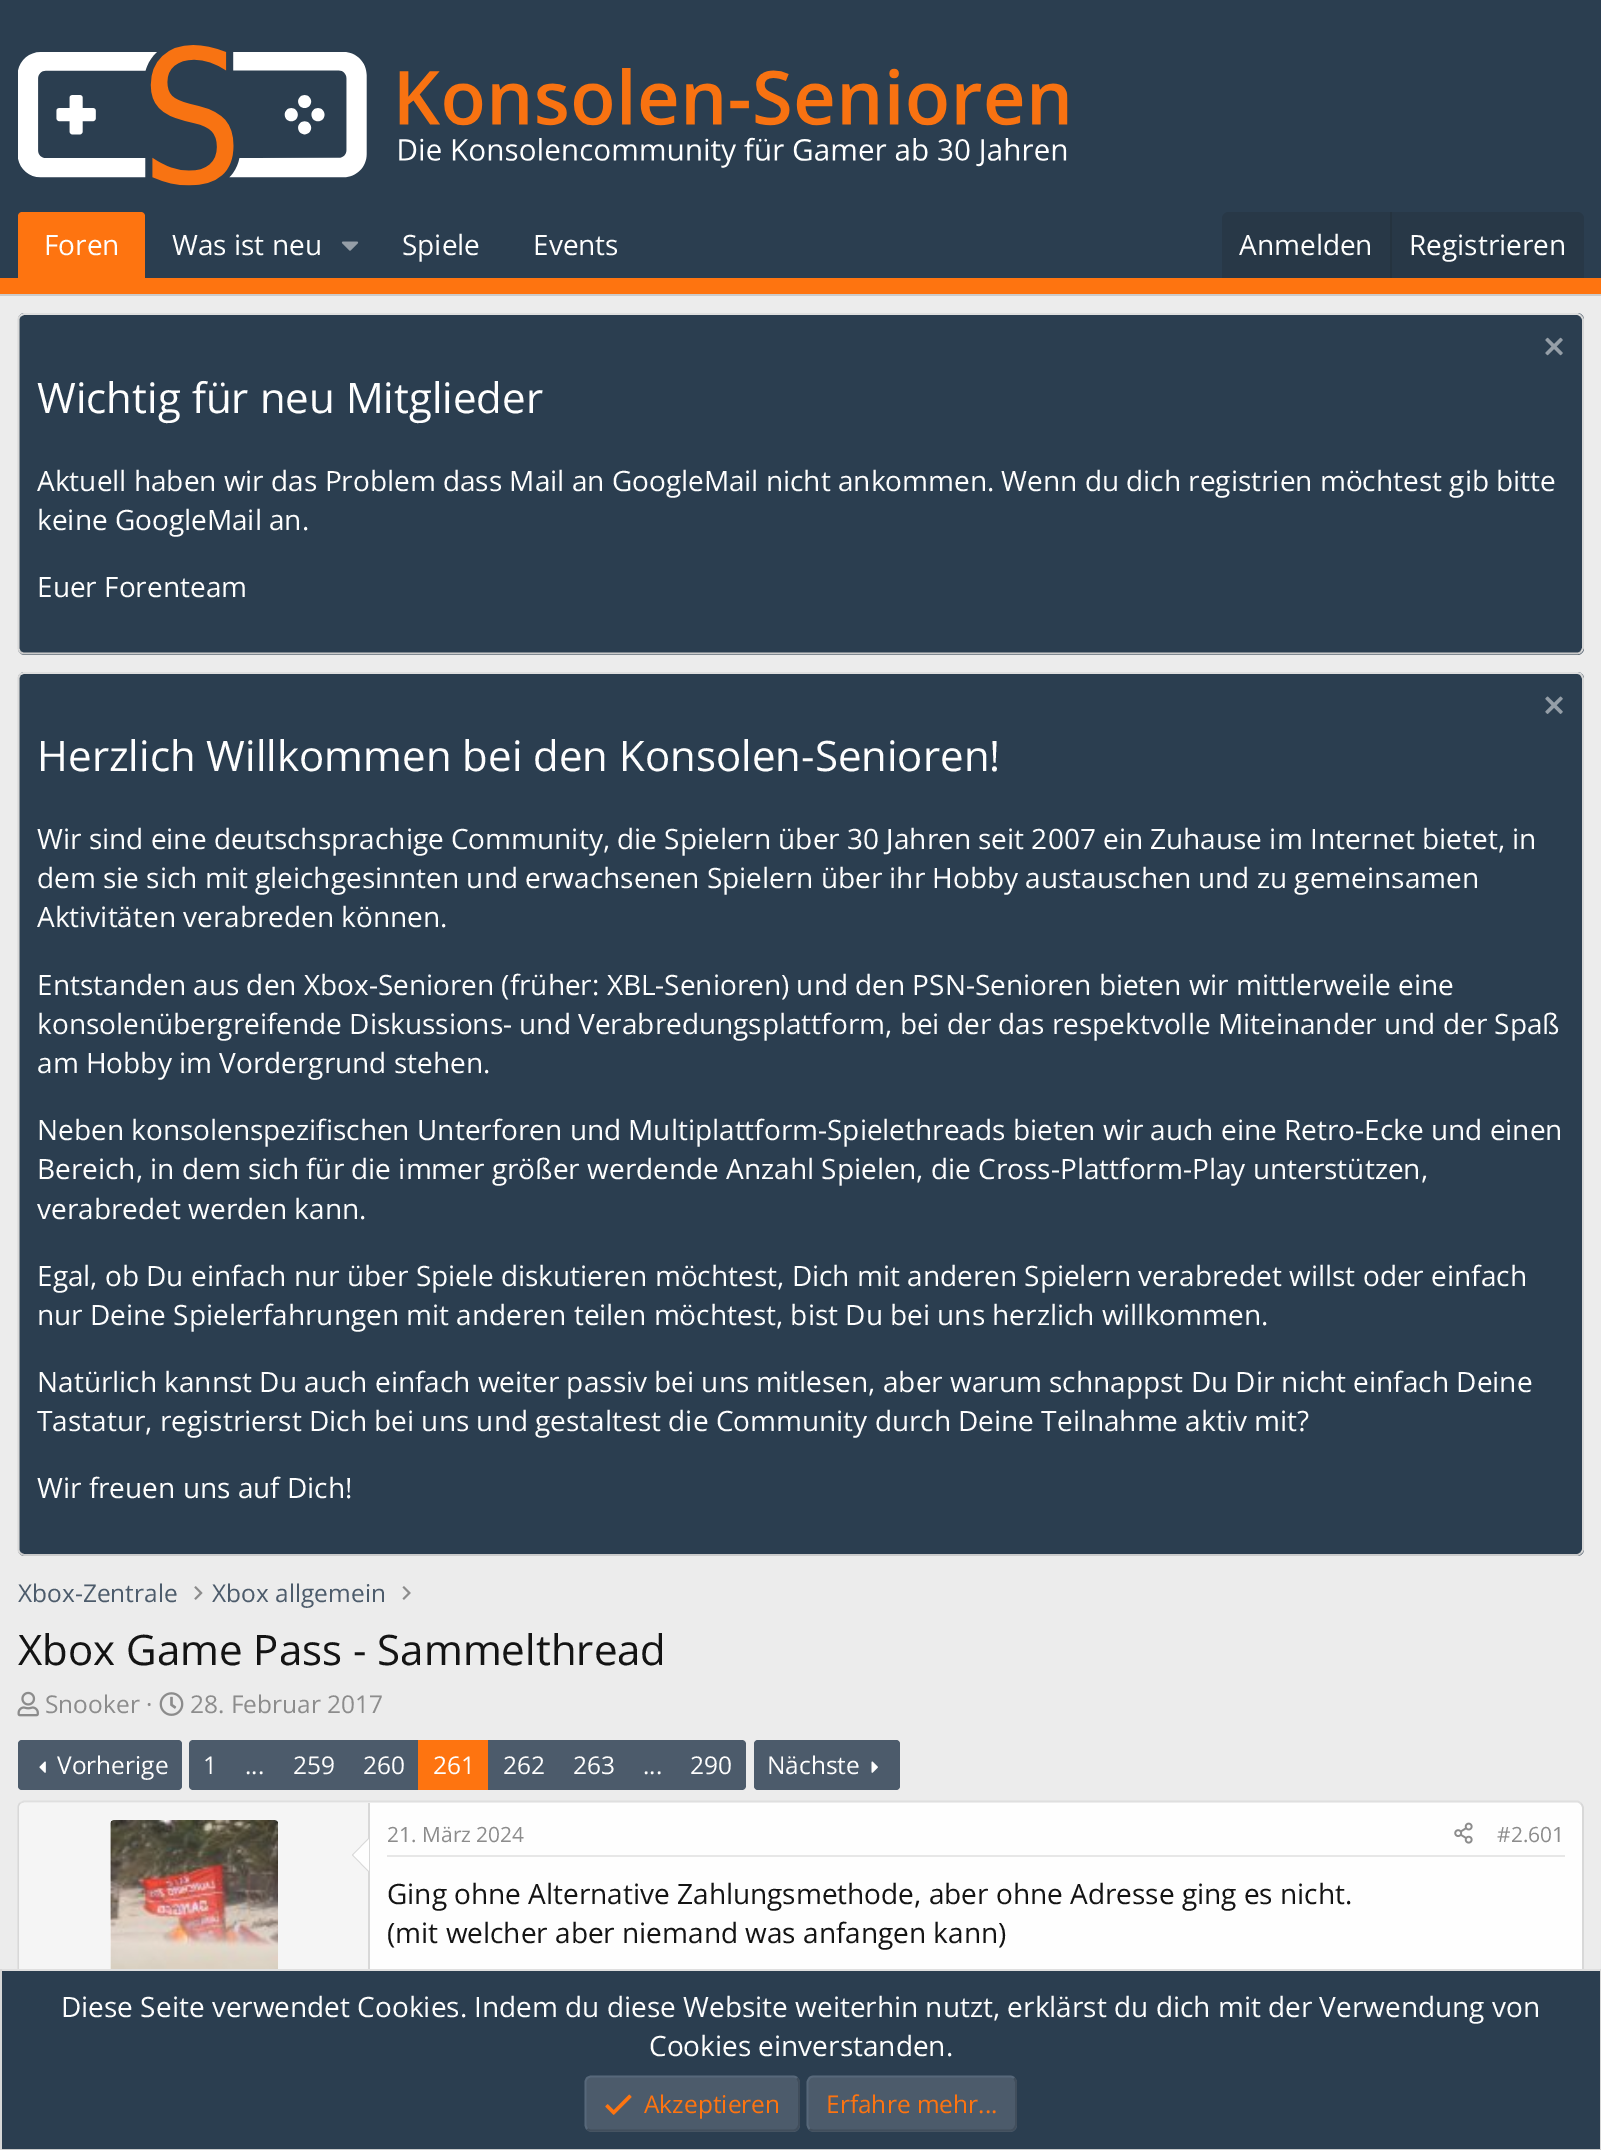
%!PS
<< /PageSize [1601 2150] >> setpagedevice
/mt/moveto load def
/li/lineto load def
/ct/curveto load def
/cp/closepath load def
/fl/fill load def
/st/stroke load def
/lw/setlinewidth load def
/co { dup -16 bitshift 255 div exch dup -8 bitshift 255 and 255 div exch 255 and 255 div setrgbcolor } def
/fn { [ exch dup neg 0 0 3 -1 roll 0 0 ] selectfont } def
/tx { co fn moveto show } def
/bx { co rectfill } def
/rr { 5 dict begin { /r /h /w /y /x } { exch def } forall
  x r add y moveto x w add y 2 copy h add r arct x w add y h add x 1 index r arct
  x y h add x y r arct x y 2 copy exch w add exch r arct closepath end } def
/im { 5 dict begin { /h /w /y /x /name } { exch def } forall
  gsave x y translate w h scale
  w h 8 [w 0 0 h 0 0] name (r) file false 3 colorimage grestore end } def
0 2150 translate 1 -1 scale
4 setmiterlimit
0 0 1601 2150 16#ECECEC bx
0 0 1601 278 16#2B3E50 bx
(media/1.raw) 18 45 1050 141 im
16#FE7410 co
22 212 mt 141 212 li 143 212 145 214 145 216 ct 145 278 li 18 278 li 18 216 li 18 214 20 212 22 212 ct cp fl
(media/2.raw) 341 241 18 10 im
16#283847 co
1229 212 mt 1577 212 li 1581 212 1584 215 1584 219 ct 1584 278 li 1222 278 li 1222 219 li 1222 215 1225 212 1229 212 ct cp fl
1390 212 2 66 16#25333F bx
0 278 1601 16 16#FE7410 bx
0 294 1601 2 16#CBCBCB bx
16#2B3E50 co
18 313 1566 342 7 rr fl
16#DFDFDF co
1.8 lw
20 316 mt 21.5 315 23 314 24.5 314 ct 1577 314 li 1578.5 314 1580 315 1581 316 ct st
16#D8D8D8 co
1581 316 mt 1582 317 1583 318.5 1583 320 ct 1583 647.5 li 1583 649 1582 650.5 1581 652 ct st
16#CBCBCB co
1581 652 mt 1580 653 1578.5 653.5 1577 653.5 ct 24.5 653.5 li 23 653.5 21.5 653 20 652 ct st
16#D8D8D8 co
20 652 mt 19 650.5 18.5 649 18.5 647.5 ct 18.5 320 li 18.5 318.5 19 317 20 316 ct st
(media/3.raw) 1545 337 18 19 im
16#2B3E50 co
18 672 1566 884 7 rr fl
16#DFDFDF co
20 674.5 mt 21.5 673.5 23 673 24.5 673 ct 1577 673 li 1578.5 673 1580 673.5 1581 674.5 ct st
16#D8D8D8 co
1581 674.5 mt 1582 676 1583 677.5 1583 679 ct 1583 1549 li 1583 1550.5 1582 1552 1581 1553 ct st
16#CBCBCB co
1581 1553 mt 1580 1554 1578.5 1555 1577 1555 ct 24.5 1555 li 23 1555 21.5 1554 20 1553 ct st
16#D8D8D8 co
20 1553 mt 19 1552 18.5 1550.5 18.5 1549 ct 18.5 679 li 18.5 677.5 19 676 20 674.5 ct st
(media/4.raw) 1545 696 18 18 im
(media/5.raw) 194 1586 9 14 im
(media/6.raw) 402 1586 9 14 im
(media/7.raw) 17 1691 22 26 im
(media/8.raw) 159 1692 25 24 im
16#4C5B6B co
18 1740 164 50 4 rr fl
(media/9.raw) 39 1761 7 12 im
193 1740 mt 231 1740 li 231 1790 li 193 1790 li 191 1790 189 1788 189 1786 ct 189 1744 li 189 1742 191 1740 193 1740 ct cp fl
231 1740 187 50 16#4C5B6B bx
418 1740 70 50 16#FE7410 bx
488 1740 188 50 16#4C5B6B bx
676 1740 mt 742 1740 li 744 1740 746 1742 746 1744 ct 746 1786 li 746 1788 744 1790 742 1790 ct 676 1790 li cp fl
754 1740 146 50 4 rr fl
(media/10.raw) 871 1761 7 12 im
16#FEFEFE co
18 1801 1566 290 7 rr fl
16#DFDFDF co
20 1803.5 mt 21.5 1802.5 23 1801.5 24.5 1801.5 ct 1577 1801.5 li 1578.5 1801.5 1580 1802.5 1581 1803.5 ct st
16#D8D8D8 co
1581 1803.5 mt 1582 1804.5 1583 1806 1583 1808 ct 1583 2084 li 1583 2086 1582 2087.5 1581 2088.5 ct st
20 2088.5 mt 19 2087.5 18.5 2086 18.5 2084 ct 18.5 1808 li 18.5 1806 19 1804.5 20 1803.5 ct st
16#F5F5F5 co
24 1803 mt 369 1803 li 369 2090 li 24 2090 li 21 2090 19 2088 19 2085 ct 19 1808 li 19 1805 21 1803 24 1803 ct cp fl
368 1803 2 166 16#D8D8D8 bx
16#FEFEFE co
110 1820 168 168 4 rr fl
(media/11.raw) 110 1820 168 149 im
16#D8D8D8 co
369 1837.5 mt 369 1872.5 li 352 1855 li cp fl
16#FEFEFE co
369 1839 mt 369 1871 li 353.5 1855 li cp fl
387 1855 1178 2 16#E7E7E7 bx
(media/12.raw) 1454 1822 19 22 im
2 1971 1598 178 16#2B3E50 bx
0 1969 1601 2 16#DFDFDF bx
1600 1969 1 181 16#D8D8D8 bx
0 2149 1601 1 16#CBCBCB bx
0 1969 2 181 16#D8D8D8 bx
16#4C5B6B co
585 2076 215 56 7 rr fl
16#414E5C co
797 2078 mt 798 2079.5 799 2081 799 2082.5 ct 799 2124.5 li 799 2126 798 2127.5 797 2129 ct 796 2130 794.5 2130.5 793 2130.5 ct 591.5 2130.5 li 590 2130.5 588.5 2130 587 2129 ct st
16#57687A co
587 2129 mt 586 2127.5 585.5 2126 585.5 2124.5 ct 585.5 2082.5 li 585.5 2081 586 2079.5 587 2078 ct 588.5 2077 590 2076.5 591.5 2076.5 ct 793 2076.5 li 794.5 2076.5 796 2077 797 2078 ct st
(media/13.raw) 605 2094 27 21 im
16#4C5B6B co
807 2076 210 56 7 rr fl
16#414E5C co
1014 2078 mt 1015 2079.5 1016 2081 1016 2082.5 ct 1016 2124.5 li 1016 2126 1015 2127.5 1014 2129 ct 1013 2130 1011.5 2130.5 1010 2130.5 ct 814 2130.5 li 812 2130.5 810.5 2130 809.5 2129 ct st
16#57687A co
809.5 2129 mt 808.5 2127.5 807.5 2126 807.5 2124.5 ct 807.5 2082.5 li 807.5 2081 808.5 2079.5 809.5 2078 ct 810.5 2077 812 2076.5 814 2076.5 ct 1010 2076.5 li 1011.5 2076.5 1013 2077 1014 2078 ct st
(Foren) 44 255 /OpenSans-Regular 28 16#FEFEFE tx
(Was ist neu) 172 255 /OpenSans-Regular 28 16#FEFEFE tx
(Spiele) 402 255 /OpenSans-Regular 28 16#FEFEFE tx
(Events) 533 255 /OpenSans-Regular 28 16#FEFEFE tx
(Anmelden) 1239 255 /OpenSans-Regular 28 16#FEFEFE tx
(Registrieren) 1409 255 /OpenSans-Regular 28 16#FEFEFE tx
(Wichtig für neu Mitglieder) 37 413 /OpenSans-Regular 42 16#FEFEFE tx
(Aktuell haben wir das Problem dass Mail an GoogleMail nicht ankommen. Wenn du dich registrien möchtest gib bitte) 37 491 /OpenSans-Regular 28 16#FEFEFE tx
(keine GoogleMail an.) 37 530 /OpenSans-Regular 28 16#FEFEFE tx
(Euer Forenteam) 37 597 /OpenSans-Regular 28 16#FEFEFE tx
(Herzlich Willkommen bei den Konsolen-Senioren!) 37 771 /OpenSans-Regular 42 16#FEFEFE tx
(Wir sind eine deutschsprachige Community, die Spielern über 30 Jahren seit 2007 ein Zuhause im Internet bietet, in) 37 849 /OpenSans-Regular 28 16#FEFEFE tx
(dem sie sich mit gleichgesinnten und erwachsenen Spielern über ihr Hobby austauschen und zu gemeinsamen) 37 888 /OpenSans-Regular 28 16#FEFEFE tx
(Aktivitäten verabreden können.) 37 927 /OpenSans-Regular 28 16#FEFEFE tx
(Entstanden aus den Xbox-Senioren \(früher: XBL-Senioren\) und den PSN-Senioren bieten wir mittlerweile eine) 37 995 /OpenSans-Regular 28 16#FEFEFE tx
(konsolenübergreifende Diskussions- und Verabredungsplattform, bei der das respektvolle Miteinander und der Spaß) 37 1034 /OpenSans-Regular 28 16#FEFEFE tx
(am Hobby im Vordergrund stehen.) 37 1073 /OpenSans-Regular 28 16#FEFEFE tx
(Neben konsolenspezifischen Unterforen und Multiplattform-Spielethreads bieten wir auch eine Retro-Ecke und einen) 37 1140 /OpenSans-Regular 28 16#FEFEFE tx
(Bereich, in dem sich für die immer größer werdende Anzahl Spielen, die Cross-Plattform-Play unterstützen,) 37 1179 /OpenSans-Regular 28 16#FEFEFE tx
(verabredet werden kann.) 37 1219 /OpenSans-Regular 28 16#FEFEFE tx
(Egal, ob Du einfach nur über Spiele diskutieren möchtest, Dich mit anderen Spielern verabredet willst oder einfach) 37 1286 /OpenSans-Regular 28 16#FEFEFE tx
(nur Deine Spielerfahrungen mit anderen teilen möchtest, bist Du bei uns herzlich willkommen.) 37 1325 /OpenSans-Regular 28 16#FEFEFE tx
(Natürlich kannst Du auch einfach weiter passiv bei uns mitlesen, aber warum schnappst Du Dir nicht einfach Deine) 37 1392 /OpenSans-Regular 28 16#FEFEFE tx
(Tastatur, registrierst Dich bei uns und gestaltest die Community durch Deine Teilnahme aktiv mit?) 37 1431 /OpenSans-Regular 28 16#FEFEFE tx
(Wir freuen uns auf Dich!) 37 1498 /OpenSans-Regular 28 16#FEFEFE tx
(Xbox-Zentrale) 18 1602 /OpenSans-Regular 24.5 16#4C5B6B tx
(Xbox allgemein) 212 1602 /OpenSans-Regular 24.5 16#4C5B6B tx
(Xbox Game Pass - Sammelthread) 18 1665 /OpenSans-Regular 42 16#141414 tx
(Snooker ·) 45 1713 /OpenSans-Regular 24.5 16#8C8C8C tx
(28. Februar 2017) 190 1713 /OpenSans-Regular 24.5 16#8C8C8C tx
(Vorherige) 57 1774 /OpenSans-Regular 24.5 16#FEFEFE tx
(1) 203 1774 /OpenSans-Regular 24.5 16#FEFEFE tx
(...) 245 1774 /OpenSans-Regular 24.5 16#FEFEFE tx
(259) 293 1774 /OpenSans-Regular 24.5 16#FEFEFE tx
(260) 363 1774 /OpenSans-Regular 24.5 16#FEFEFE tx
(261) 433 1774 /OpenSans-Regular 24.5 16#FEFEFE tx
(262) 503 1774 /OpenSans-Regular 24.5 16#FEFEFE tx
(263) 573 1774 /OpenSans-Regular 24.5 16#FEFEFE tx
(...) 643 1774 /OpenSans-Regular 24.5 16#FEFEFE tx
(290) 690 1774 /OpenSans-Regular 24.5 16#FEFEFE tx
(Nächste) 767 1774 /OpenSans-Regular 24.5 16#FEFEFE tx
(21. März 2024) 387 1842 /OpenSans-Regular 21 16#8C8C8C tx
(#2.601) 1497 1842 /OpenSans-Regular 21 16#8C8C8C tx
(Ging ohne Alternative Zahlungsmethode, aber ohne Adresse ging es nicht.) 387 1904 /OpenSans-Regular 28 16#141414 tx
(\(mit welcher aber niemand was anfangen kann\)) 387 1943 /OpenSans-Regular 28 16#141414 tx
(Diese Seite verwendet Cookies. Indem du diese Website weiterhin nutzt, erklärst du dich mit der Verwendung von) 61 2017 /OpenSans-Regular 28 16#FEFEFE tx
(Cookies einverstanden.) 649 2056 /OpenSans-Regular 28 16#FEFEFE tx
(Akzeptieren) 644 2113 /OpenSans-Regular 24.5 16#FE7410 tx
(Erfahre mehr...) 826 2113 /OpenSans-Regular 24.5 16#FE7410 tx
showpage
